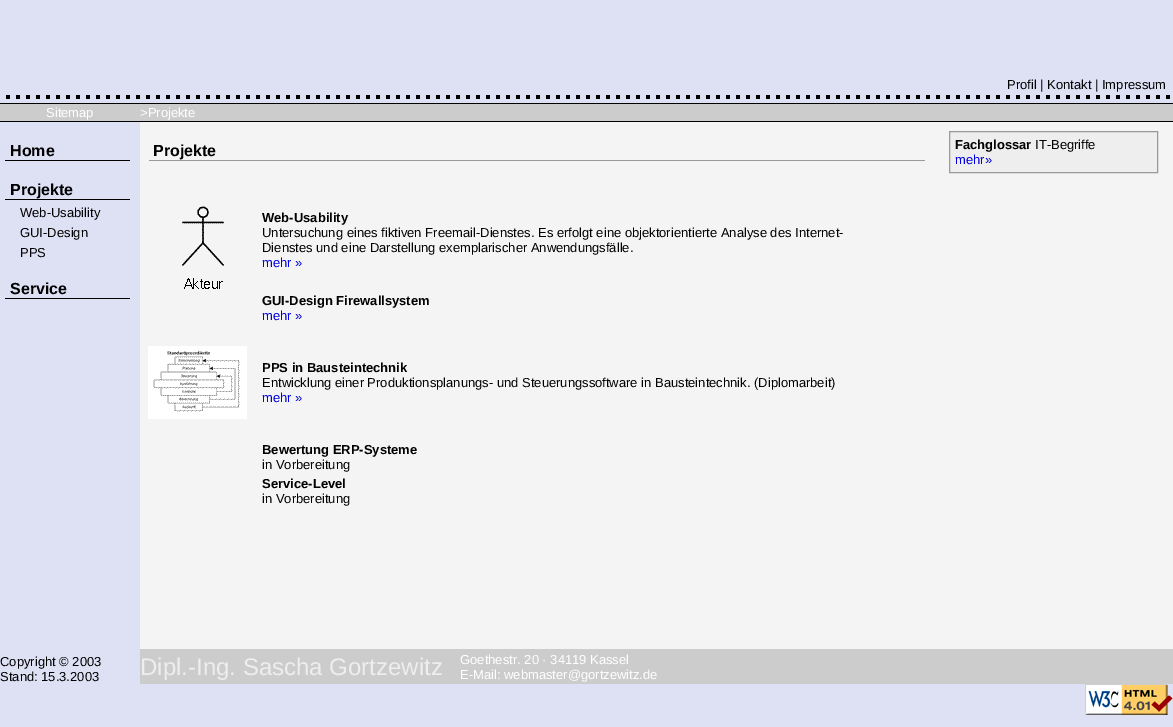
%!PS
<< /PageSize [1173 727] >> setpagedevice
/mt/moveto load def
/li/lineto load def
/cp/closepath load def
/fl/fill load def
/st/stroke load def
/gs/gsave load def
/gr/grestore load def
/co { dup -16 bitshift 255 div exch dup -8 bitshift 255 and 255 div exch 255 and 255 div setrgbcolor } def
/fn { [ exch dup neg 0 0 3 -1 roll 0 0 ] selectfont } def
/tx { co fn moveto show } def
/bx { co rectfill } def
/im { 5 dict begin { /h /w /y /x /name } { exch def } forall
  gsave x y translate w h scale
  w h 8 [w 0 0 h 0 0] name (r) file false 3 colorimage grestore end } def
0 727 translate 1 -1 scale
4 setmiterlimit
0 0 1173 727 16#DEE0F4 bx
(media/1.raw) 6 95 1164 4 im
0 103 1173 1 16#000000 bx
0 104 1173 17 16#CCCCCC bx
0 121 1173 1 16#000000 bx
5 160 125 1 16#000000 bx
5 199 125 1 16#000000 bx
5 298 125 1 16#000000 bx
140 122 1033 527 16#F4F4F4 bx
149 160 776 1 16#999999 bx
(media/2.raw) 182 206 42 83 im
(media/3.raw) 148 346 99 73 im
16#EEEEEE co
949.5 131.5 mt 1157.5 131.5 li 1157.5 172.5 li 949.5 172.5 li cp gs fl gr
16#999999 co
st
140 649 1033 35 16#CCCCCC bx
(media/4.raw) 1085 684 88 31 im
(Profil | Kontakt | Impressum) 1007 89 /LiberationSans-Regular 13 16#000000 tx
(Sitemap) 46 117 /LiberationSans-Regular 13 16#FFFFFF tx
(>Projekte) 140 117 /LiberationSans-Regular 13 16#FFFFFF tx
(Home) 10 156 /LiberationSans-Bold 16 16#000000 tx
(Projekte) 10 195 /LiberationSans-Bold 16 16#000000 tx
(Web-Usability) 20 217 /LiberationSans-Regular 13 16#000000 tx
(GUI-Design) 20 237 /LiberationSans-Regular 13 16#000000 tx
(PPS) 20 257 /LiberationSans-Regular 13 16#000000 tx
(Service) 10 294 /LiberationSans-Bold 16 16#000000 tx
(Projekte) 153 156 /LiberationSans-Bold 16 16#000000 tx
(Web-Usability) 262 222 /LiberationSans-Bold 13 16#000000 tx
(Untersuchung eines fiktiven Freemail-Dienstes. Es erfolgt eine objektorientierte Analyse des Internet-) 262 237 /LiberationSans-Regular 13 16#000000 tx
(Dienstes und eine Darstellung exemplarischer Anwendungsfälle.) 262 252 /LiberationSans-Regular 13 16#000000 tx
(mehr ») 262 267 /LiberationSans-Regular 13 16#0000E0 tx
(GUI-Design Firewallsystem) 262 305 /LiberationSans-Bold 13 16#000000 tx
(mehr ») 262 320 /LiberationSans-Regular 13 16#0000E0 tx
(PPS in Bausteintechnik) 262 372 /LiberationSans-Bold 13 16#000000 tx
(Entwicklung einer Produktionsplanungs- und Steuerungssoftware in Bausteintechnik. \(Diplomarbeit\)) 262 387 /LiberationSans-Regular 13 16#000000 tx
(mehr ») 262 402 /LiberationSans-Regular 13 16#0000E0 tx
(Bewertung ERP-Systeme) 262 454 /LiberationSans-Bold 13 16#000000 tx
(in Vorbereitung) 262 469 /LiberationSans-Regular 13 16#000000 tx
(Service-Level) 262 488 /LiberationSans-Bold 13 16#000000 tx
(in Vorbereitung) 262 503 /LiberationSans-Regular 13 16#000000 tx
(Fachglossar) 955 149 /LiberationSans-Bold 13 16#000000 tx
(IT-Begriffe) 1035 149 /LiberationSans-Regular 13 16#000000 tx
(mehr») 955 164 /LiberationSans-Regular 13 16#0000E0 tx
(Copyright © 2003) 0 666 /LiberationSans-Regular 13 16#000000 tx
(Stand: 15.3.2003) 0 681 /LiberationSans-Regular 13 16#000000 tx
(Dipl.-Ing. Sascha Gortzewitz) 140 675 /LiberationSans-Regular 24 16#EEEEEE tx
(Goethestr. 20 · 34119 Kassel) 460 664 /LiberationSans-Regular 13 16#FFFFFF tx
(E-Mail: webmaster@gortzewitz.de) 460 679 /LiberationSans-Regular 13 16#FFFFFF tx
showpage
